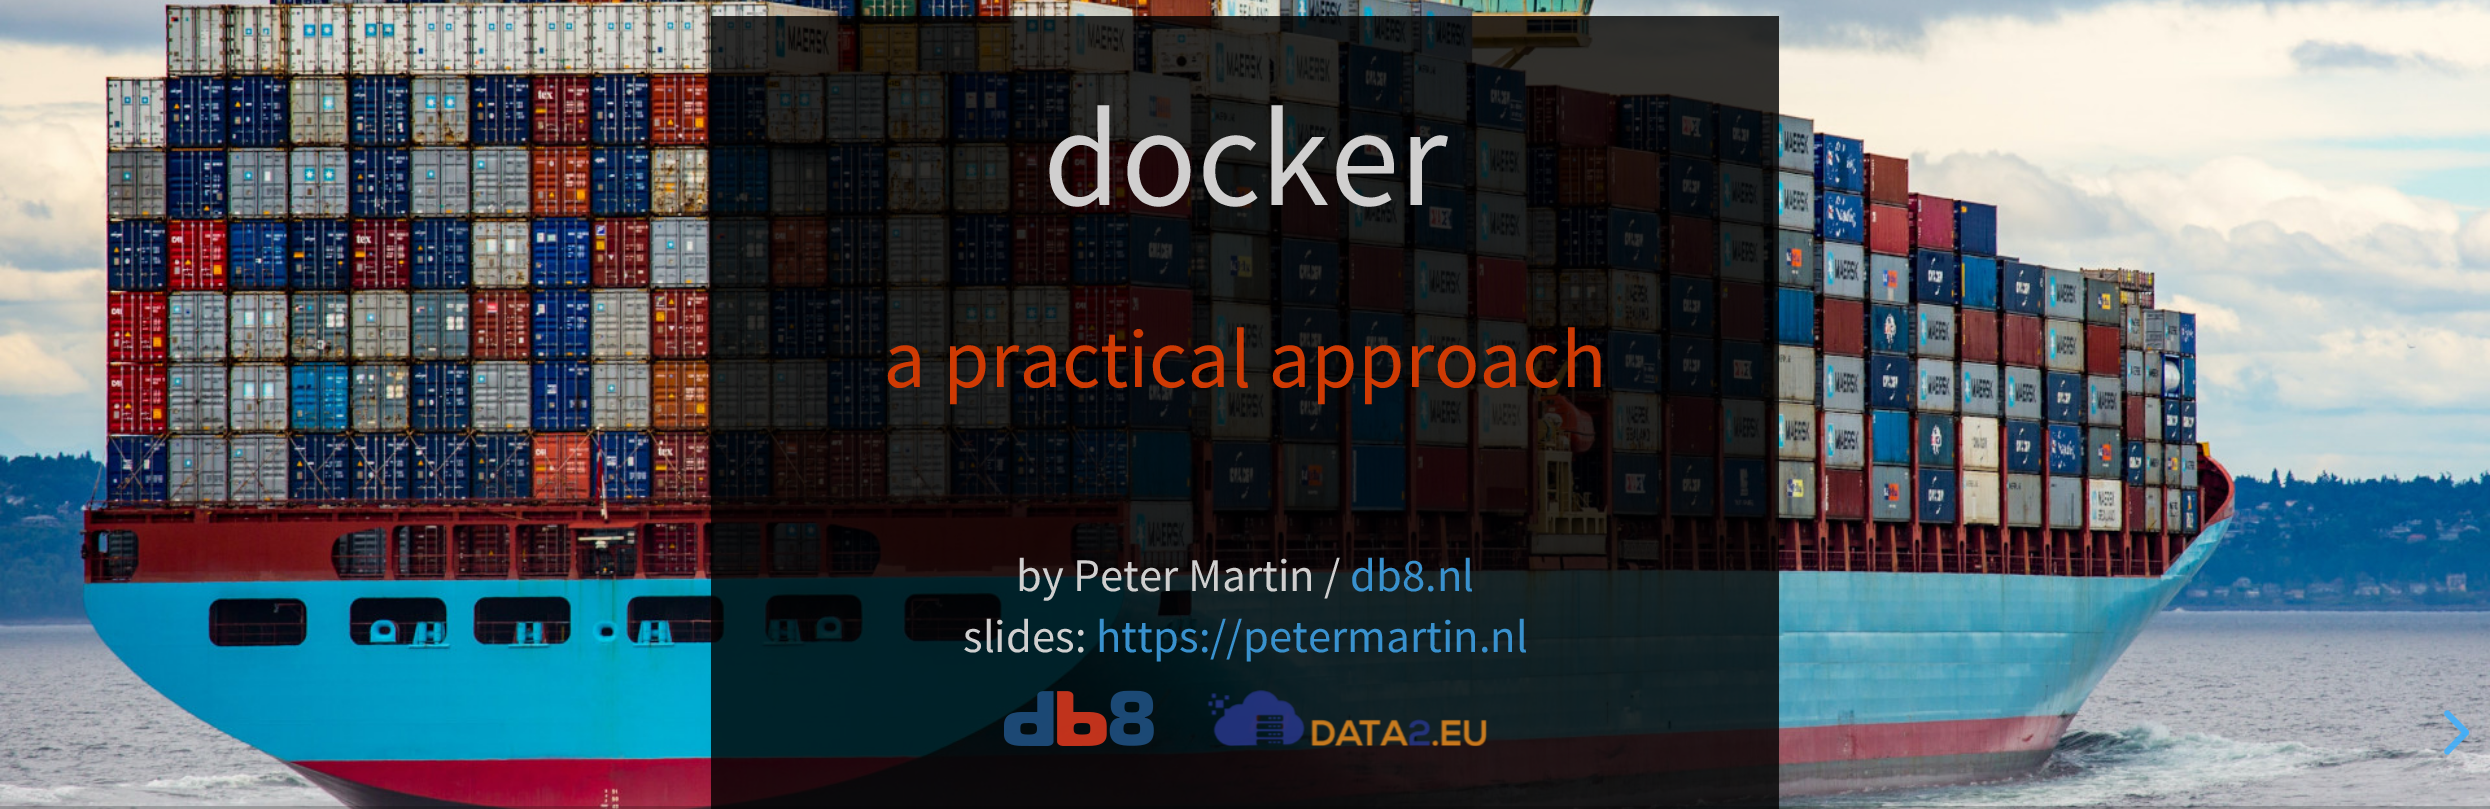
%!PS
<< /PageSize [2490 809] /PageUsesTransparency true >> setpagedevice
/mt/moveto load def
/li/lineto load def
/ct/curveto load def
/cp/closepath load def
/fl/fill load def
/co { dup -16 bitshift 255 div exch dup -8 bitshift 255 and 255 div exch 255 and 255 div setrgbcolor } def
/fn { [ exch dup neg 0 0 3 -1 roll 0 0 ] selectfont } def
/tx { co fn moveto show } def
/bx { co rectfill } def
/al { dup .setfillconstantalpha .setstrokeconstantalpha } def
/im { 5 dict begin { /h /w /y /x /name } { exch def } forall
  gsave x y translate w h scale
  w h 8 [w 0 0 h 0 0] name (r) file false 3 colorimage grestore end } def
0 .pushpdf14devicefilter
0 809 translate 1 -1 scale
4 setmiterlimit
0 0 2490 809 16#FFFFFF bx
(media/1.raw) 0 0 2490 809 im
0.8 al
711 16 1068 475 16#000000 bx
711 491 1068 318 16#000000 bx
1 al
(media/2.raw) 1004 690 150 56 im
(media/3.raw) 1207 690 280 57 im
0.9 al
16#42AFFA co
2463.5 734.5 mt 2445 715.5 li 2444 714.5 2444 712.5 2445 711.5 ct 2446.5 710 2448 710 2449.5 711.5 ct 2468 730 li 2469 731 2469 733 2468 734.5 ct 2467 735.5 2465 735.5 2463.5 734.5 ct cp fl
2468 735 mt 2449.5 753.5 li 2448 755 2446.5 755 2445 753.5 ct 2444 752.5 2444 750.5 2445 749.5 ct 2463.5 730.5 li 2465 729.5 2467 729.5 2468 730.5 ct 2469 732 2469 734 2468 735 ct cp fl
0.2 al
0 806 2490 3 16#000000 bx
1 al
(docker) 1043 205 /SourceSansPro-Regular 140 16#D0CFCF tx
(a practical approach) 883 387 /SourceSansPro-Regular 84 16#CF3A03 tx
(by Peter Martin /) 1016 591 /SourceSansPro-Regular 46.75 16#D0CFCF tx
(db8.nl) 1350 591 /SourceSansPro-Regular 46.75 16#3991CE tx
(slides:) 963 652 /SourceSansPro-Regular 46.75 16#D0CFCF tx
(https://petermartin.nl) 1096 652 /SourceSansPro-Regular 46.75 16#3991CE tx
.poppdf14devicefilter showpage
